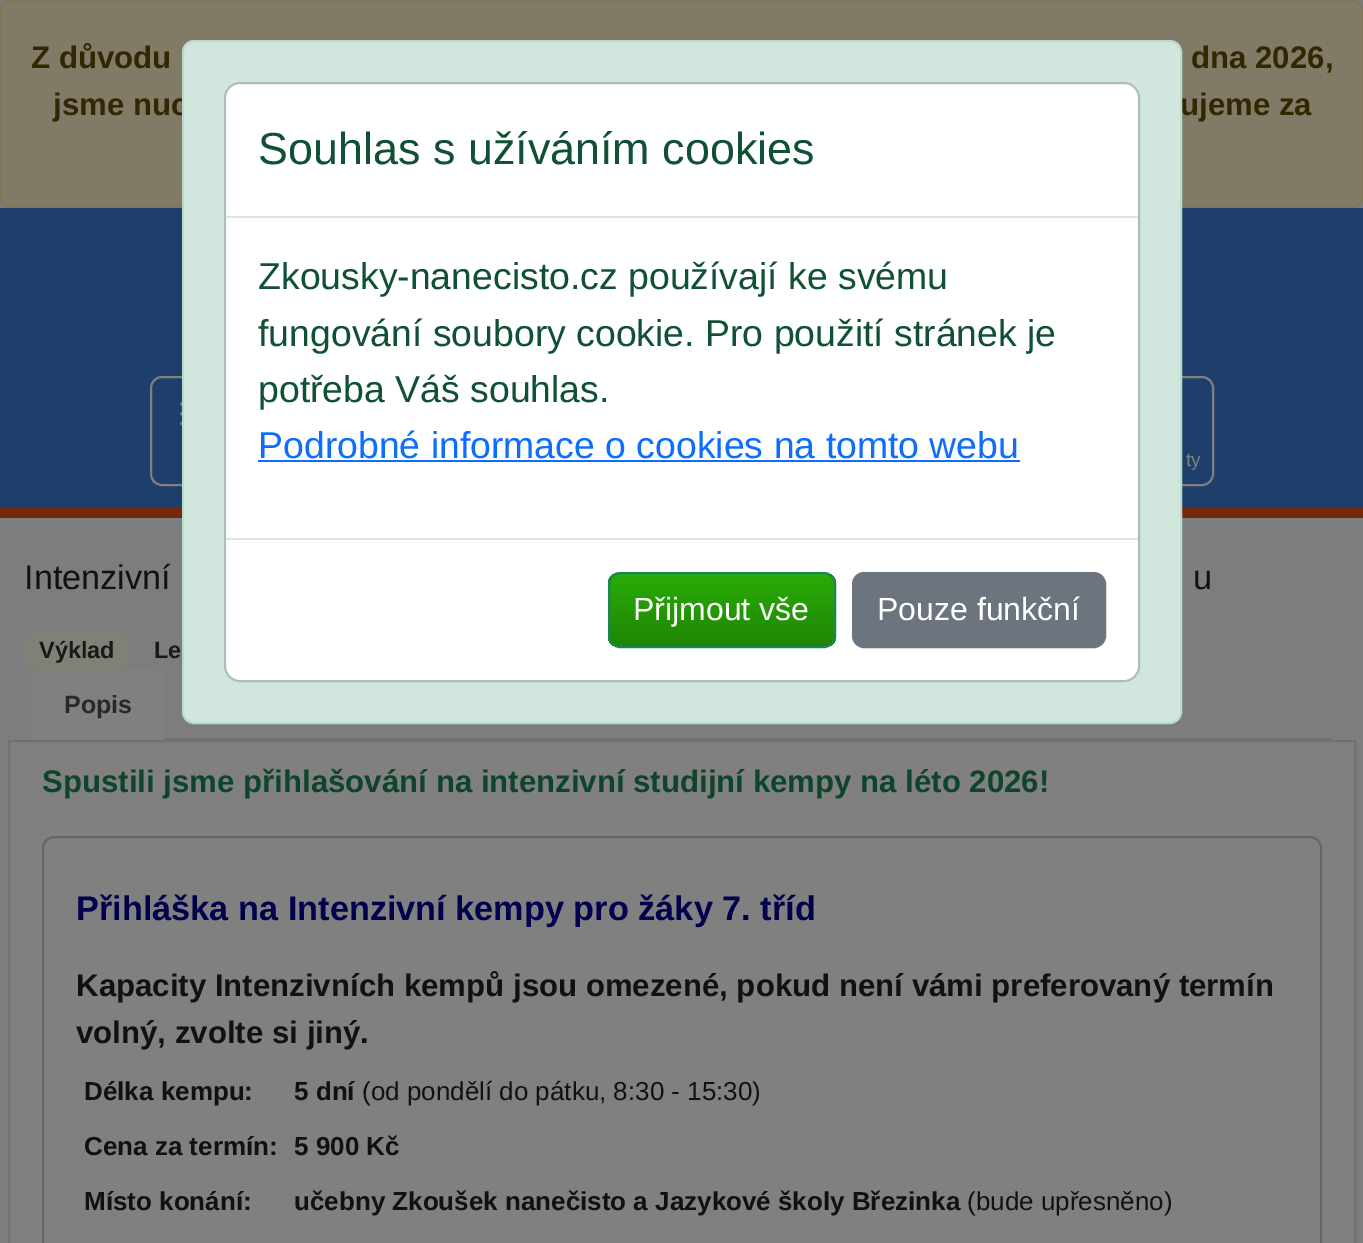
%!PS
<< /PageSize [1363 1243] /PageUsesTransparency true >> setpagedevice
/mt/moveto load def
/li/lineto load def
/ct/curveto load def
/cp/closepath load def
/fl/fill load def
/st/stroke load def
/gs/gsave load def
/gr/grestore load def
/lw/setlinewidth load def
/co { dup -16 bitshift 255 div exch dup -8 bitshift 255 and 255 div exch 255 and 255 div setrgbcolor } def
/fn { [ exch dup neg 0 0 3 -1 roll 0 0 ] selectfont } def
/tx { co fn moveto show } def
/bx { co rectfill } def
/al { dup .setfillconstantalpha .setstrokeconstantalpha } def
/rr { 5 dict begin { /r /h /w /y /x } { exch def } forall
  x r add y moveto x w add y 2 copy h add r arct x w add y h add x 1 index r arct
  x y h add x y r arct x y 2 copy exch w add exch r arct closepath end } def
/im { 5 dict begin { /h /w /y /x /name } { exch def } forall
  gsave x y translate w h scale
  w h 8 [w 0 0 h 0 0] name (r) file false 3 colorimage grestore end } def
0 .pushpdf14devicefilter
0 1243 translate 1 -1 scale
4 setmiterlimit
0 0 1363 1243 16#7D7A74 bx
16#807A67 co
1 1 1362 206 11 rr gs fl gr
16#80765B co
2 lw
st
0 518 1363 725 16#7D7D7F bx
16#808080 co
9 741 mt 1355 741 li 1355 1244 li 9 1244 li cp gs fl gr
16#6F7173 co
st
16#666666 co
43 837 1278 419 11 rr st
16#808076 co
24 630 106 40 12 rr fl
164 738 1168 2 16#6F7173 bx
16#808080 co
44 670 mt 152 670 li 158.5 670 164 675.5 164 682 ct 164 740 li 32 740 li 32 682 li 32 675.5 37.5 670 44 670 ct cp fl
0 208 1363 300 16#1E3F6B bx
(media/1.raw) 180 401 2 25 im
16#7F7F7F co
151 377 98 108 11 rr st
1115 377 98 108 11 rr st
0 508 1363 10 16#75280C bx
(Z důvodu) 31 68 /LiberationSans-Bold 31.2 16#332702 tx
(dna 2026,) 1191 68 /LiberationSans-Bold 31.2 16#332702 tx
(jsme nuc) 53 115 /LiberationSans-Bold 31.2 16#332702 tx
(ujeme za) 1180 115 /LiberationSans-Bold 31.2 16#332702 tx
16#D1E7DD co
183 41 998 682 11 rr gs fl gr
16#BADBCC co
st
16#FFFFFF co
226 84 912 596 14 rr fl
0.18 al
16#000000 co
225 83 914 598 15 rr st
1 al
226 216 912 2 16#DEE2E6 bx
(Souhlas s užíváním cookies) 258 164 /LiberationSans-Regular 44.9 16#0F5132 tx
(Zkousky-nanecisto.cz používají ke svému) 258 289 /LiberationSans-Regular 37.4 16#0F5132 tx
(fungování soubory cookie. Pro použití stránek je) 258 346 /LiberationSans-Regular 37.4 16#0F5132 tx
(potřeba Váš souhlas.) 258 402 /LiberationSans-Regular 37.4 16#0F5132 tx
(Podrobné informace o cookies na tomto webu) 258 458 /LiberationSans-Regular 37.4 16#0D6EFD tx
258 460 762 2 16#0D6EFD bx
226 538 912 2 16#DEE2E6 bx
gs
608 572 228 76 12 rr clip newpath
gs 608 574 mt 836 574 li 836 646 li 608 646 li cp clip newpath
<< /ShadingType 2 /ColorSpace /DeviceRGB /Coords [722 574 722 646] /Extend [true true] /Function << /FunctionType 2 /Domain [0 1] /C0 [.161 .675 .027] /C1 [.125 .522 .02] /N 1 >> >> shfill gr
gr
16#198754 co
609 573 226 74 11 rr st
(Přijmout vše) 633 620 /LiberationSans-Regular 32 16#FFFFFF tx
16#6C757D co
853 573 252 74 11 rr gs fl gr
st
(Pouze funkční) 877 620 /LiberationSans-Regular 32 16#FFFFFF tx
(Spustili jsme přihlašování na intenzivní studijní kempy na léto 2026!) 42 792 /LiberationSans-Bold 31.2 16#0D442A tx
(Přihláška na Intenzivní kempy pro žáky 7. tříd) 76 920 /LiberationSans-Bold 34.3 16#00004D tx
(Kapacity Intenzivních kempů jsou omezené, pokud není vámi preferovaný termín) 76 996 /LiberationSans-Bold 31.2 16#111111 tx
(volný, zvolte si jiný.) 76 1043 /LiberationSans-Bold 31.2 16#111111 tx
(Délka kempu:) 84 1100 /LiberationSans-Bold 26 16#111111 tx
(5 dní) 294 1100 /LiberationSans-Bold 26 16#111111 tx
(\(od pondělí do pátku, 8:30 - 15:30\)) 362 1100 /LiberationSans-Regular 26 16#111111 tx
(Cena za termín:) 84 1155 /LiberationSans-Bold 26 16#111111 tx
(5 900 Kč) 294 1155 /LiberationSans-Bold 26 16#111111 tx
(Místo konání:) 84 1210 /LiberationSans-Bold 26 16#111111 tx
(učebny Zkoušek nanečisto a Jazykové školy Březinka) 294 1210 /LiberationSans-Bold 26 16#111111 tx
(\(bude upřesněno\)) 967 1210 /LiberationSans-Regular 26 16#111111 tx
(Intenzivní) 24 589 /LiberationSans-Regular 34.3 16#111111 tx
(u) 1193 589 /LiberationSans-Regular 34.3 16#111111 tx
(Výklad) 39 658 /LiberationSans-Bold 23.5 16#191919 tx
(Le) 154 658 /LiberationSans-Bold 23.5 16#191919 tx
(Popis) 64 713 /LiberationSans-Bold 25 16#25282C tx
(ty) 1186 466 /LiberationSans-Regular 19 16#7F7F7F tx
.poppdf14devicefilter showpage
